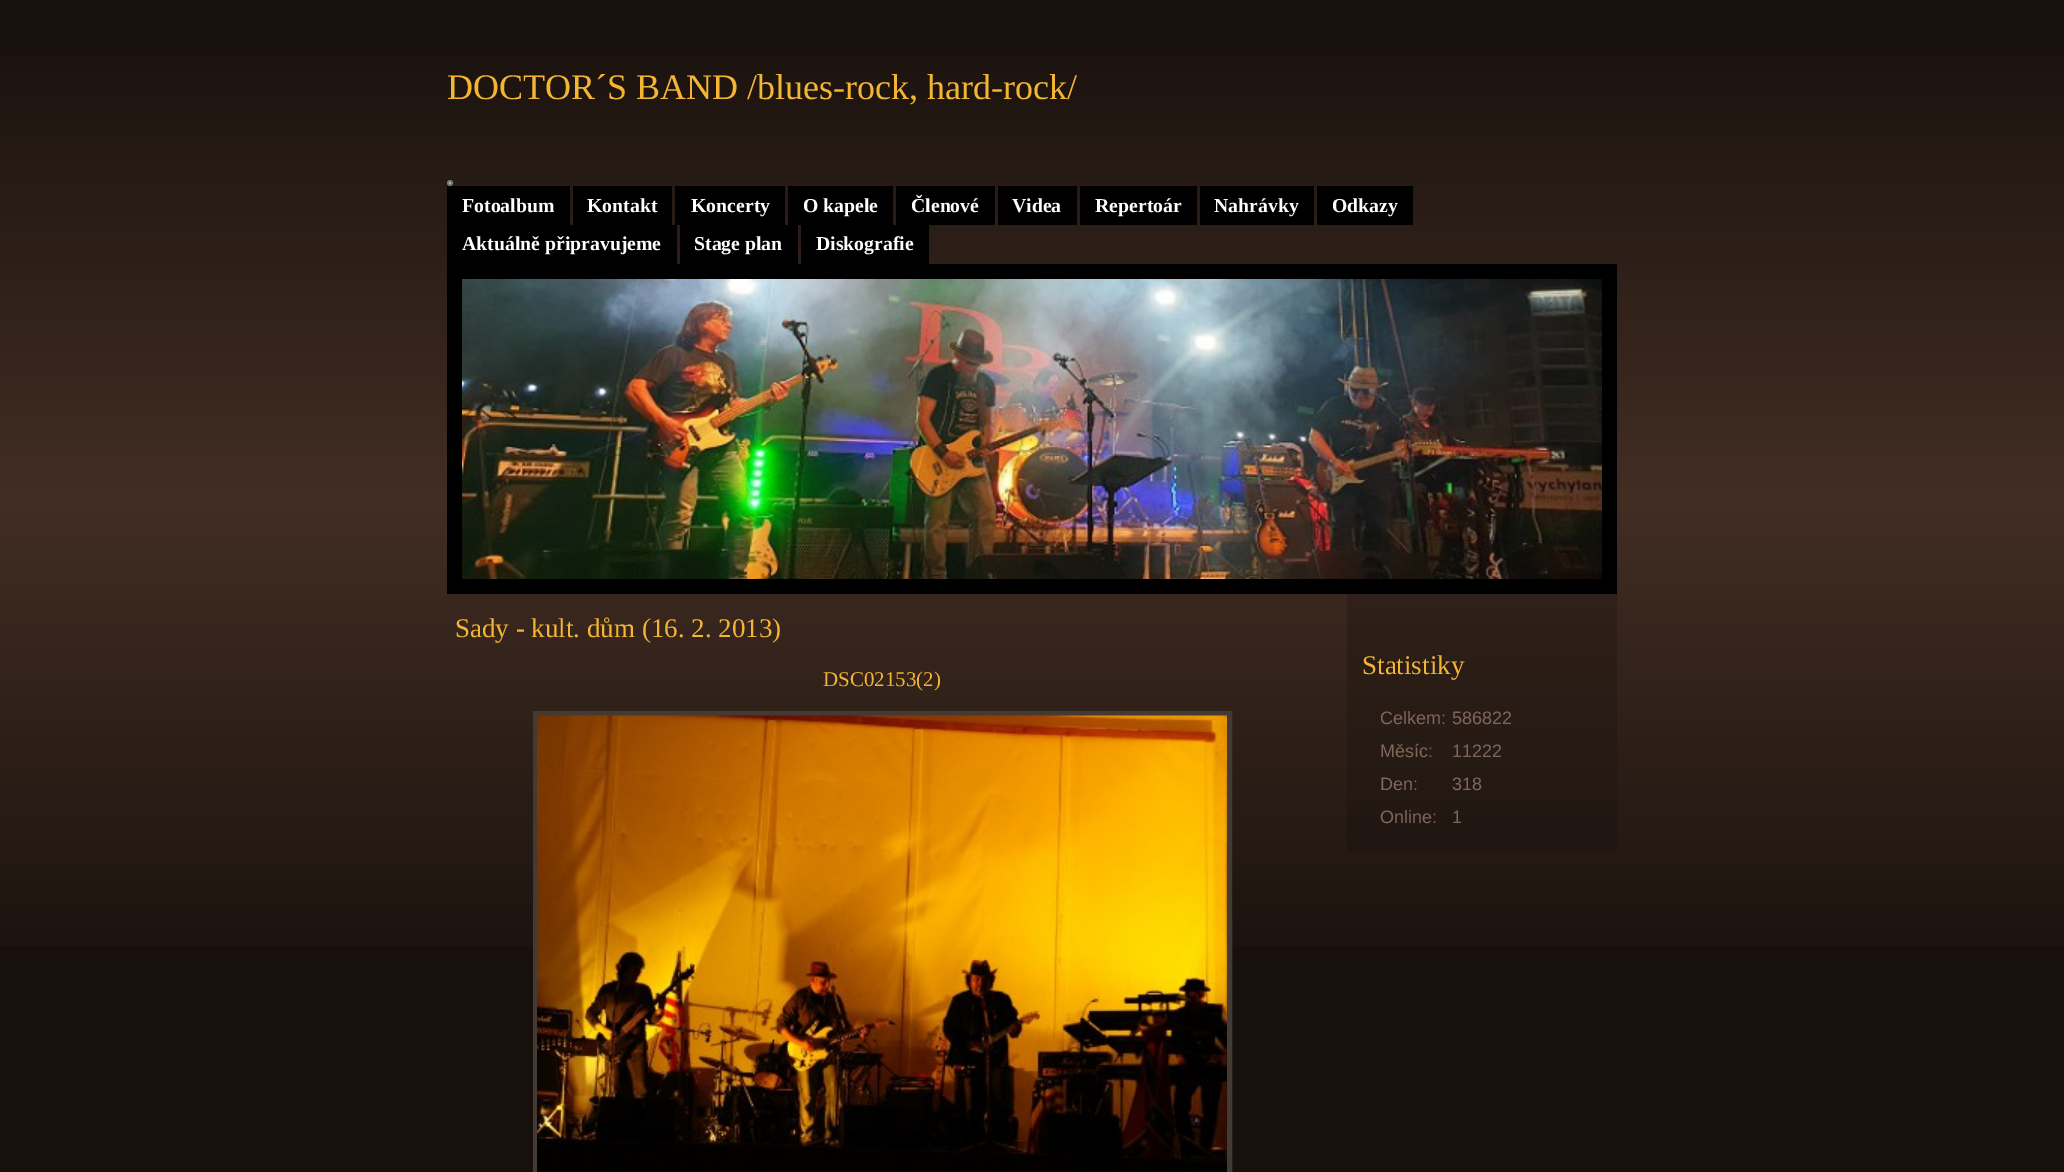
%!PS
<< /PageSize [2064 1172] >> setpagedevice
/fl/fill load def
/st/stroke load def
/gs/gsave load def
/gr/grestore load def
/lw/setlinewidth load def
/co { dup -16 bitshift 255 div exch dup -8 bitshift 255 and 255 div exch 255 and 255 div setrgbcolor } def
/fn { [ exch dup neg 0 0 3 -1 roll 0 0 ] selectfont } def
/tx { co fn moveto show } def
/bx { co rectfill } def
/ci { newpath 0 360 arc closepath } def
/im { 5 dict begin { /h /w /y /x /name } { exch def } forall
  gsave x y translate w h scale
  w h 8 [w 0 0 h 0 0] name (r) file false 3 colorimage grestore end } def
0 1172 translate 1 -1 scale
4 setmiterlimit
0 0 2064 1172 16#17100C bx
(media/1.raw) 0 55 2064 891 im
447 264 1170 330 16#000000 bx
(media/2.raw) 462 279 1140 300 im
447 186 123 39 16#000000 bx
573 186 99 39 16#000000 bx
675 186 110 39 16#000000 bx
788 186 105 39 16#000000 bx
896 186 99 39 16#000000 bx
998 186 79 39 16#000000 bx
1080 186 117 39 16#000000 bx
1200 186 114 39 16#000000 bx
1317 186 96 39 16#000000 bx
447 225 230 39 16#000000 bx
680 225 118 39 16#000000 bx
801 225 128 39 16#000000 bx
16#433A33 co
5 lw
535.5 713.5 694 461 rectstroke
(media/3.raw) 537 715 690 457 im
(media/4.raw) 1347 594 270 257 im
16#EFEFEF co
450 183 2 ci gs fl gr
16#767676 co
2 lw
st
(DOCTOR´S BAND /blues-rock, hard-rock/) 447 99 /LiberationSerif-Regular 36 16#F3B533 tx
(Fotoalbum) 462 212 /LiberationSerif-Bold 19.75 16#FFFFFF tx
(Kontakt) 587 212 /LiberationSerif-Bold 19.75 16#FFFFFF tx
(Koncerty) 691 212 /LiberationSerif-Bold 19.75 16#FFFFFF tx
(O kapele) 803 212 /LiberationSerif-Bold 19.75 16#FFFFFF tx
(Členové) 911 212 /LiberationSerif-Bold 19.75 16#FFFFFF tx
(Videa) 1012 212 /LiberationSerif-Bold 19.75 16#FFFFFF tx
(Repertoár) 1095 212 /LiberationSerif-Bold 19.75 16#FFFFFF tx
(Nahrávky) 1214 212 /LiberationSerif-Bold 19.75 16#FFFFFF tx
(Odkazy) 1332 212 /LiberationSerif-Bold 19.75 16#FFFFFF tx
(Aktuálně připravujeme) 462 250 /LiberationSerif-Bold 19.75 16#FFFFFF tx
(Stage plan) 694 250 /LiberationSerif-Bold 19.75 16#FFFFFF tx
(Diskografie) 816 250 /LiberationSerif-Bold 19.75 16#FFFFFF tx
(Sady - kult. dům \(16. 2. 2013\)) 455 637 /LiberationSerif-Regular 27 16#F3B533 tx
(DSC02153\(2\)) 823 686 /LiberationSerif-Regular 21 16#F3B533 tx
(Statistiky) 1362 674 /LiberationSerif-Regular 27 16#F3B533 tx
(Celkem:) 1380 724 /LiberationSans-Regular 18 16#7F675C tx
(586822) 1452 724 /LiberationSans-Regular 18 16#7F675C tx
(Měsíc:) 1380 757 /LiberationSans-Regular 18 16#7F675C tx
(11222) 1452 757 /LiberationSans-Regular 18 16#7F675C tx
(Den:) 1380 790 /LiberationSans-Regular 18 16#7F675C tx
(318) 1452 790 /LiberationSans-Regular 18 16#7F675C tx
(Online:) 1380 823 /LiberationSans-Regular 18 16#7F675C tx
(1) 1452 823 /LiberationSans-Regular 18 16#7F675C tx
showpage
